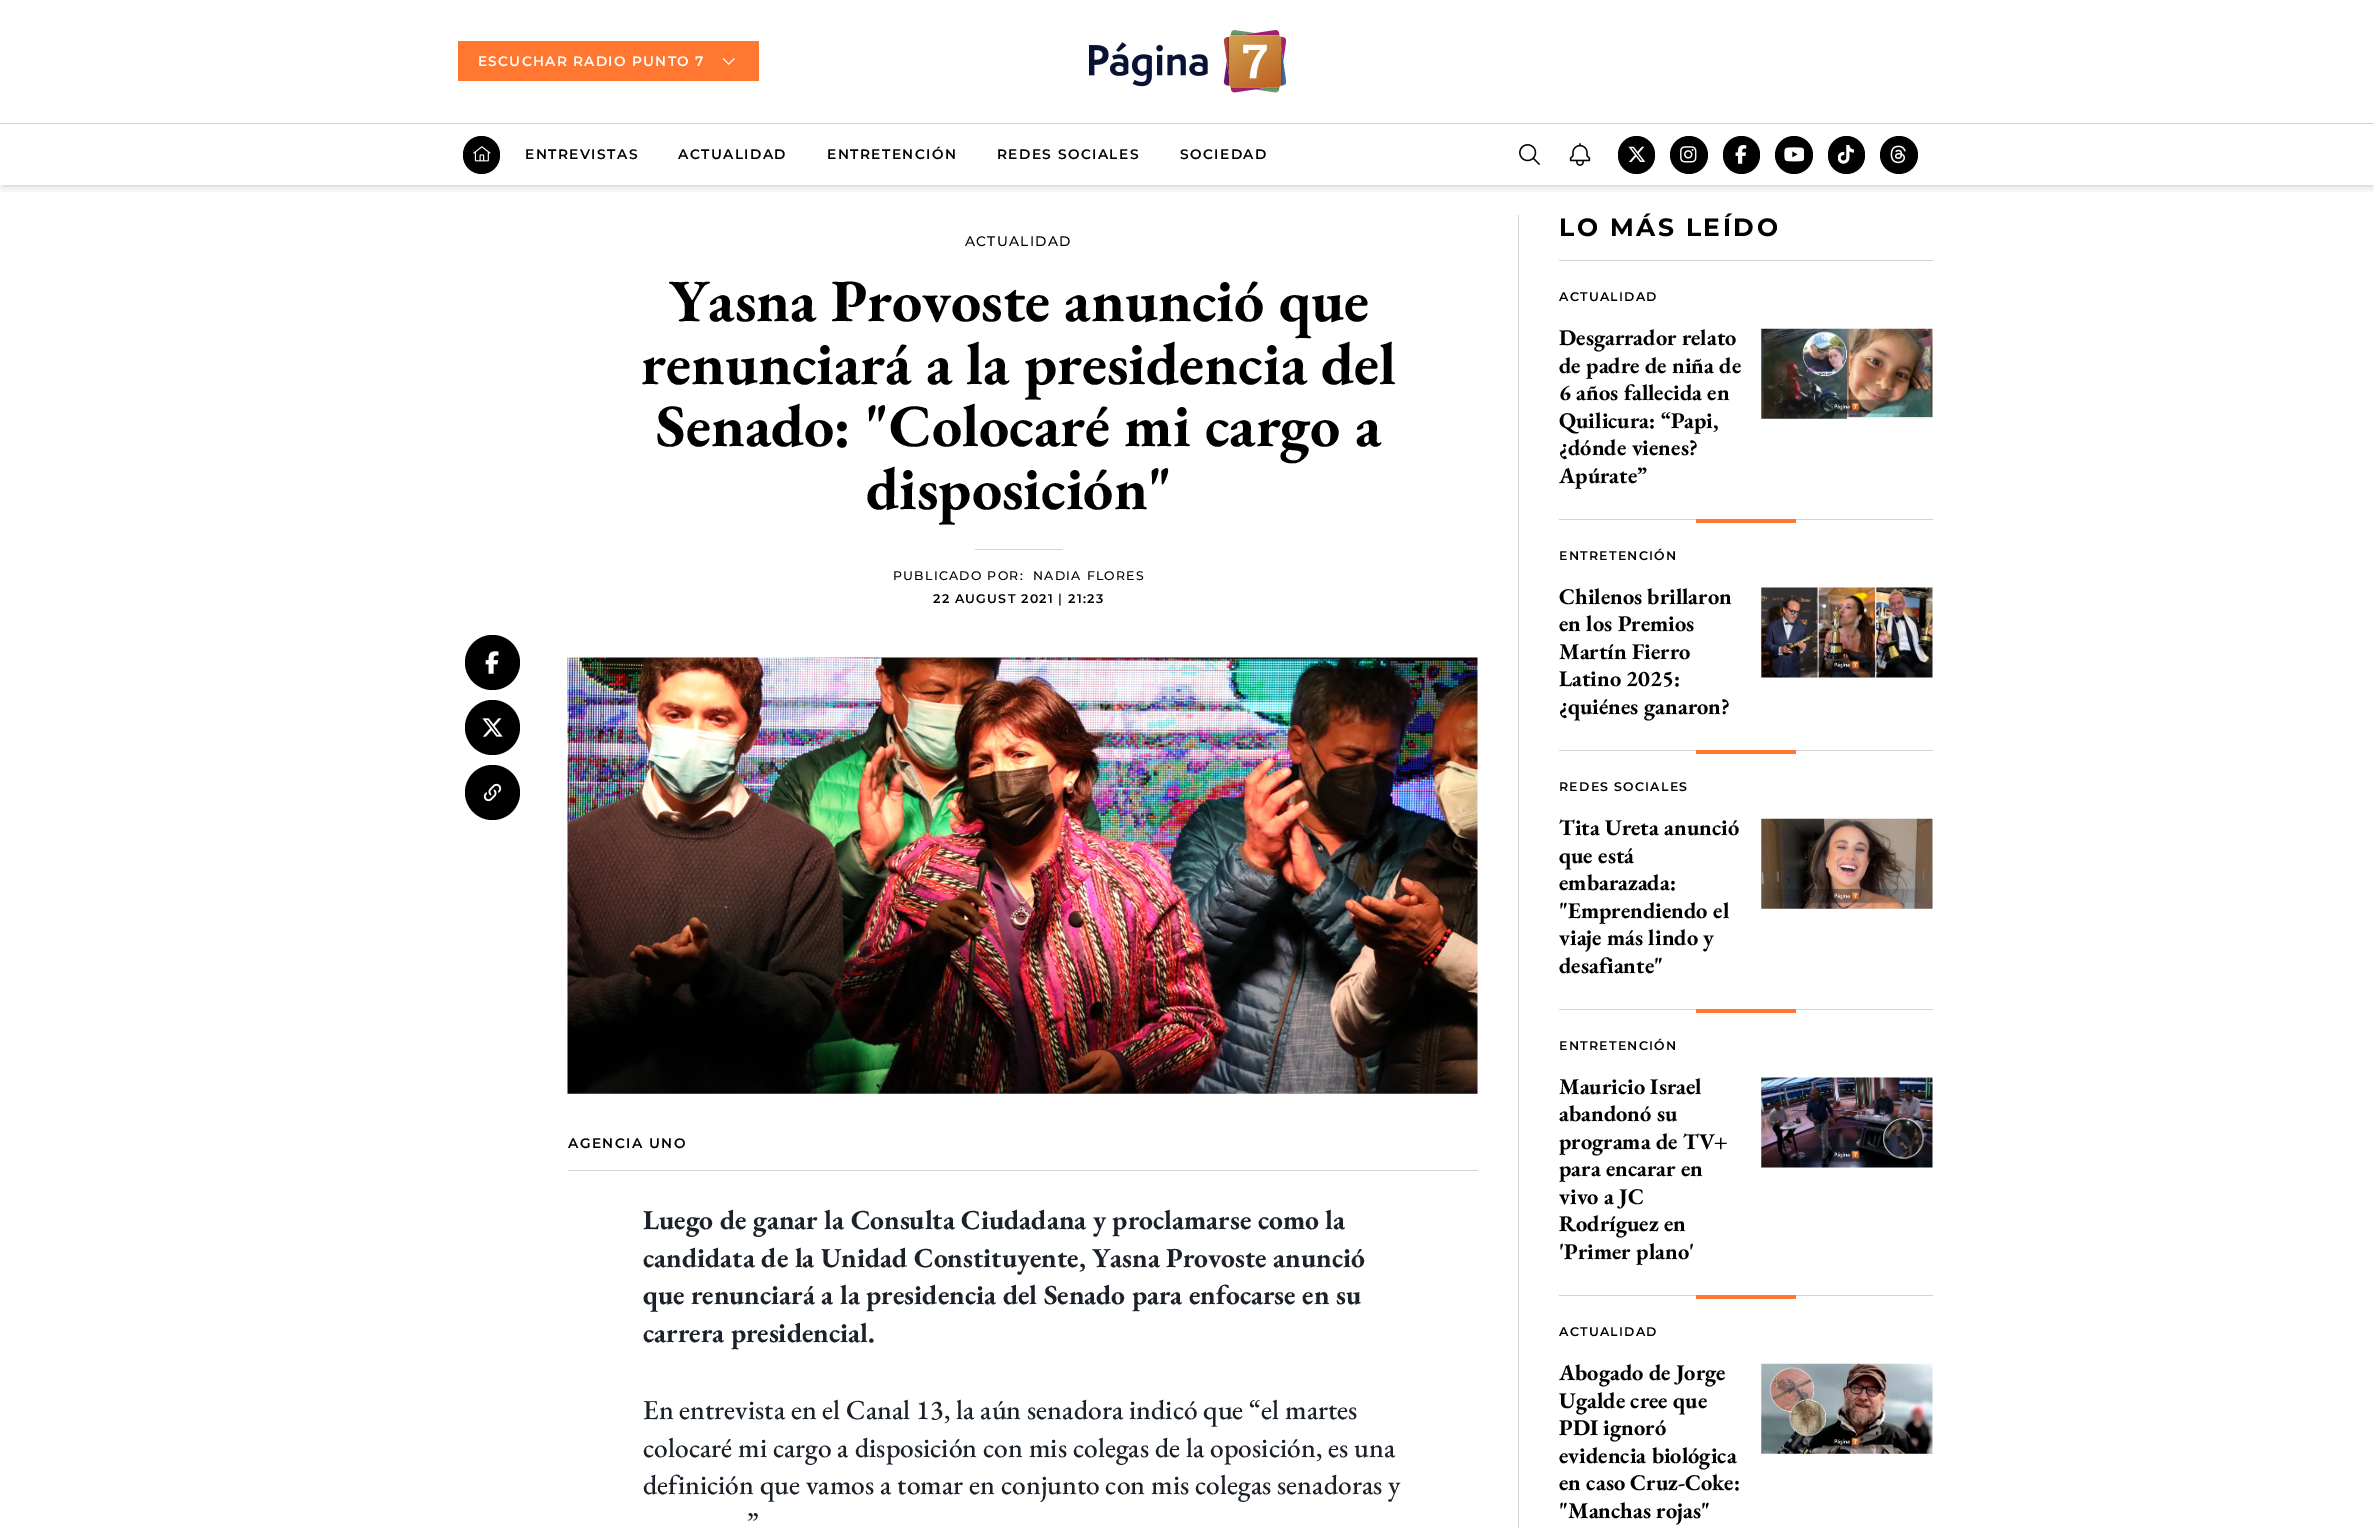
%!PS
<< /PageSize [2374 1528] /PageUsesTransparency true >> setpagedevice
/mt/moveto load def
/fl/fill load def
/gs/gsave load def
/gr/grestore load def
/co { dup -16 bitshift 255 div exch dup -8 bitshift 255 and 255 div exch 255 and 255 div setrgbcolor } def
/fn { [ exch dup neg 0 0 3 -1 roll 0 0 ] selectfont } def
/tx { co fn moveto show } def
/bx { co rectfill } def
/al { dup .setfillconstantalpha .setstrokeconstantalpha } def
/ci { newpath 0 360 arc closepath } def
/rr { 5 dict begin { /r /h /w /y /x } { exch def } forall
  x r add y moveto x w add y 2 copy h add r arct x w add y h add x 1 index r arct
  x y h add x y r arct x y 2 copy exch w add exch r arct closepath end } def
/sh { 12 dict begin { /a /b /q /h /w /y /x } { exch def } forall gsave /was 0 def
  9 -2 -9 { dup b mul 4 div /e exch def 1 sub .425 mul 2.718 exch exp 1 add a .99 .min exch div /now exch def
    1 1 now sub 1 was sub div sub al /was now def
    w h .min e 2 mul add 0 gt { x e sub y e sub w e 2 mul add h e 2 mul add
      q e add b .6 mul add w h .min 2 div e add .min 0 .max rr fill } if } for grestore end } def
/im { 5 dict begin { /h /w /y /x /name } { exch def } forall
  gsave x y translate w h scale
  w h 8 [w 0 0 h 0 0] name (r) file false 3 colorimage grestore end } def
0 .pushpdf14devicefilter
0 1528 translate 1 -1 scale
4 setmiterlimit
0 0 2374 1528 16#FFFFFF bx
gs
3 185 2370 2 rectclip
16#000000 co
3 5 2370 180 0 2.5 .1 sh
gr
gs
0 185 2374 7 rectclip
16#000000 co
1 6 2373 183 0 4 .1 sh
gr
458 41 301 40 16#FF7731 bx
(media/1.raw) 722 58 13 7 im
(media/2.raw) 1089 30 197 63 im
0 123 2374 1 16#D4D4D4 bx
16#000000 co
463 136 37 38 18.5 rr fl
(media/3.raw) 473 146 18 16 im
(media/4.raw) 1519 144 21 21 im
(media/5.raw) 1569 143 22 23 im
1618 136 37 38 18.5 rr fl
(media/6.raw) 1628 146 18 16 im
1689 155 19 ci fl
(media/7.raw) 1680 146 17 17 im
1723 136 37 38 18.5 rr fl
(media/8.raw) 1735 145 12 19 im
1794 155 19 ci fl
(media/9.raw) 1784 147 20 15 im
1828 136 37 38 18.5 rr fl
(media/10.raw) 1838 145 16 19 im
1899 155 19 ci fl
(media/11.raw) 1890 145 16 19 im
975 549 88 1 16#D4D4D4 bx
16#000000 co
492.5 662.5 27.5 ci fl
(media/12.raw) 485 651 14 23 im
492.5 727.5 27.5 ci fl
(media/13.raw) 482 718 21 19 im
492.5 792.5 27.5 ci fl
(media/14.raw) 483 783 19 19 im
(media/15.raw) 567 657 911 437 im
568 1170 910 1 16#D4D4D4 bx
1518 215 1 1313 16#D4D4D4 bx
1559 260 374 1 16#D4D4D4 bx
1559 519 374 1 16#D4D4D4 bx
(media/16.raw) 1761 328 172 91 im
1696 519 100 4 16#FF7731 bx
1559 750 374 1 16#D4D4D4 bx
(media/17.raw) 1761 587 172 91 im
1696 750 100 4 16#FF7731 bx
1559 1009 374 1 16#D4D4D4 bx
(media/18.raw) 1761 818 172 91 im
1696 1009 100 4 16#FF7731 bx
1559 1295 374 1 16#D4D4D4 bx
(media/19.raw) 1761 1077 172 91 im
1696 1295 100 4 16#FF7731 bx
(media/20.raw) 1761 1363 172 91 im
/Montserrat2-Thin 13.75 fn
16#FFFFFF co
478 66 mt 1.25 0 (ESCUCHAR RADIO PUNTO 7) ashow
16#000000 co
525 159 mt 1.4 0 (ENTREVISTAS) ashow
678 159 mt 1.4 0 (ACTUALIDAD) ashow
827 159 mt 1.4 0 (ENTRETENCIÓN) ashow
997 159 mt 1.4 0 (REDES SOCIALES) ashow
1180 159 mt 1.4 0 (SOCIEDAD) ashow
/Montserrat-Thin 13.75 fn
965 246 mt 1.25 0 (ACTUALIDAD) ashow
(Yasna Provoste anunció que) 669 321 /EBGaramond-Bold 60 16#000000 tx
(renunciará a la presidencia del) 641 384 /EBGaramond-Bold 60 16#000000 tx
(Senado: "Colocaré mi cargo a) 656 446 /EBGaramond-Bold 60 16#000000 tx
(disposición") 866 509 /EBGaramond-Bold 60 16#000000 tx
/Montserrat-Thin 12.5 fn
893 580 mt 1.25 0 (PUBLICADO POR:) ashow
1033 580 mt 1.25 0 (NADIA FLORES) ashow
/Montserrat2-Thin 12.5 fn
933 603 mt 1.25 0 (22 AUGUST 2021 | 21:23) ashow
/Montserrat2-Thin 13.75 fn
568 1148 mt 1.4 0 (AGENCIA UNO) ashow
(Luego de ganar la Consulta Ciudadana y proclamarse como la) 643 1229 /EBGaramond-Bold 27.5 16#1B2129 tx
(candidata de la Unidad Constituyente, Yasna Provoste anunció) 643 1267 /EBGaramond-Bold 27.5 16#1B2129 tx
(que renunciará a la presidencia del Senado para enfocarse en su) 643 1304 /EBGaramond-Bold 27.5 16#1B2129 tx
(carrera presidencial.) 643 1342 /EBGaramond-Bold 27.5 16#1B2129 tx
(En entrevista en el Canal 13, la aún senadora indicó que “el martes) 643 1419 /EBGaramond-Medium 27.5 16#1B2129 tx
(colocaré mi cargo a disposición con mis colegas de la oposición, es una) 643 1457 /EBGaramond-Medium 27.5 16#1B2129 tx
(definición que vamos a tomar en conjunto con mis colegas senadoras y) 643 1494 /EBGaramond-Medium 27.5 16#1B2129 tx
(”) 747 1532 /EBGaramond-Medium 27.5 16#1B2129 tx
/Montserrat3-Thin 25 fn
16#000000 co
1559 236 mt 2.5 0 (LO MÁS LEÍDO) ashow
/Montserrat2-Thin 12.5 fn
1559 301 mt 1.25 0 (ACTUALIDAD) ashow
(Desgarrador relato) 1559 345 /EBGaramond-Bold 22.5 16#000000 tx
(de padre de niña de) 1559 373 /EBGaramond-Bold 22.5 16#000000 tx
(6 años fallecida en) 1559 400 /EBGaramond-Bold 22.5 16#000000 tx
(Quilicura: “Papi,) 1559 428 /EBGaramond-Bold 22.5 16#000000 tx
(¿dónde vienes?) 1559 455 /EBGaramond-Bold 22.5 16#000000 tx
(Apúrate”) 1559 483 /EBGaramond-Bold 22.5 16#000000 tx
/Montserrat2-Thin 12.5 fn
1559 560 mt 1.25 0 (ENTRETENCIÓN) ashow
(Chilenos brillaron) 1559 604 /EBGaramond-Bold 22.5 16#000000 tx
(en los Premios) 1559 631 /EBGaramond-Bold 22.5 16#000000 tx
(Martín Fierro) 1559 659 /EBGaramond-Bold 22.5 16#000000 tx
(Latino 2025:) 1559 686 /EBGaramond-Bold 22.5 16#000000 tx
(¿quiénes ganaron?) 1559 714 /EBGaramond-Bold 22.5 16#000000 tx
/Montserrat2-Thin 12.5 fn
1559 791 mt 1.25 0 (REDES SOCIALES) ashow
(Tita Ureta anunció) 1559 835 /EBGaramond-Bold 22.5 16#000000 tx
(que está) 1559 863 /EBGaramond-Bold 22.5 16#000000 tx
(embarazada:) 1559 890 /EBGaramond-Bold 22.5 16#000000 tx
("Emprendiendo el) 1559 918 /EBGaramond-Bold 22.5 16#000000 tx
(viaje más lindo y) 1559 945 /EBGaramond-Bold 22.5 16#000000 tx
(desafiante") 1559 973 /EBGaramond-Bold 22.5 16#000000 tx
/Montserrat2-Thin 12.5 fn
1559 1050 mt 1.25 0 (ENTRETENCIÓN) ashow
(Mauricio Israel) 1559 1094 /EBGaramond-Bold 22.5 16#000000 tx
(abandonó su) 1559 1121 /EBGaramond-Bold 22.5 16#000000 tx
(programa de TV+) 1559 1149 /EBGaramond-Bold 22.5 16#000000 tx
(para encarar en) 1559 1176 /EBGaramond-Bold 22.5 16#000000 tx
(vivo a JC) 1559 1204 /EBGaramond-Bold 22.5 16#000000 tx
(Rodríguez en) 1559 1231 /EBGaramond-Bold 22.5 16#000000 tx
('Primer plano') 1559 1259 /EBGaramond-Bold 22.5 16#000000 tx
/Montserrat2-Thin 12.5 fn
1559 1336 mt 1.25 0 (ACTUALIDAD) ashow
(Abogado de Jorge) 1559 1380 /EBGaramond-Bold 22.5 16#000000 tx
(Ugalde cree que) 1559 1408 /EBGaramond-Bold 22.5 16#000000 tx
(PDI ignoró) 1559 1435 /EBGaramond-Bold 22.5 16#000000 tx
(evidencia biológica) 1559 1463 /EBGaramond-Bold 22.5 16#000000 tx
(en caso Cruz-Coke:) 1559 1490 /EBGaramond-Bold 22.5 16#000000 tx
("Manchas rojas") 1559 1518 /EBGaramond-Bold 22.5 16#000000 tx
.poppdf14devicefilter showpage
